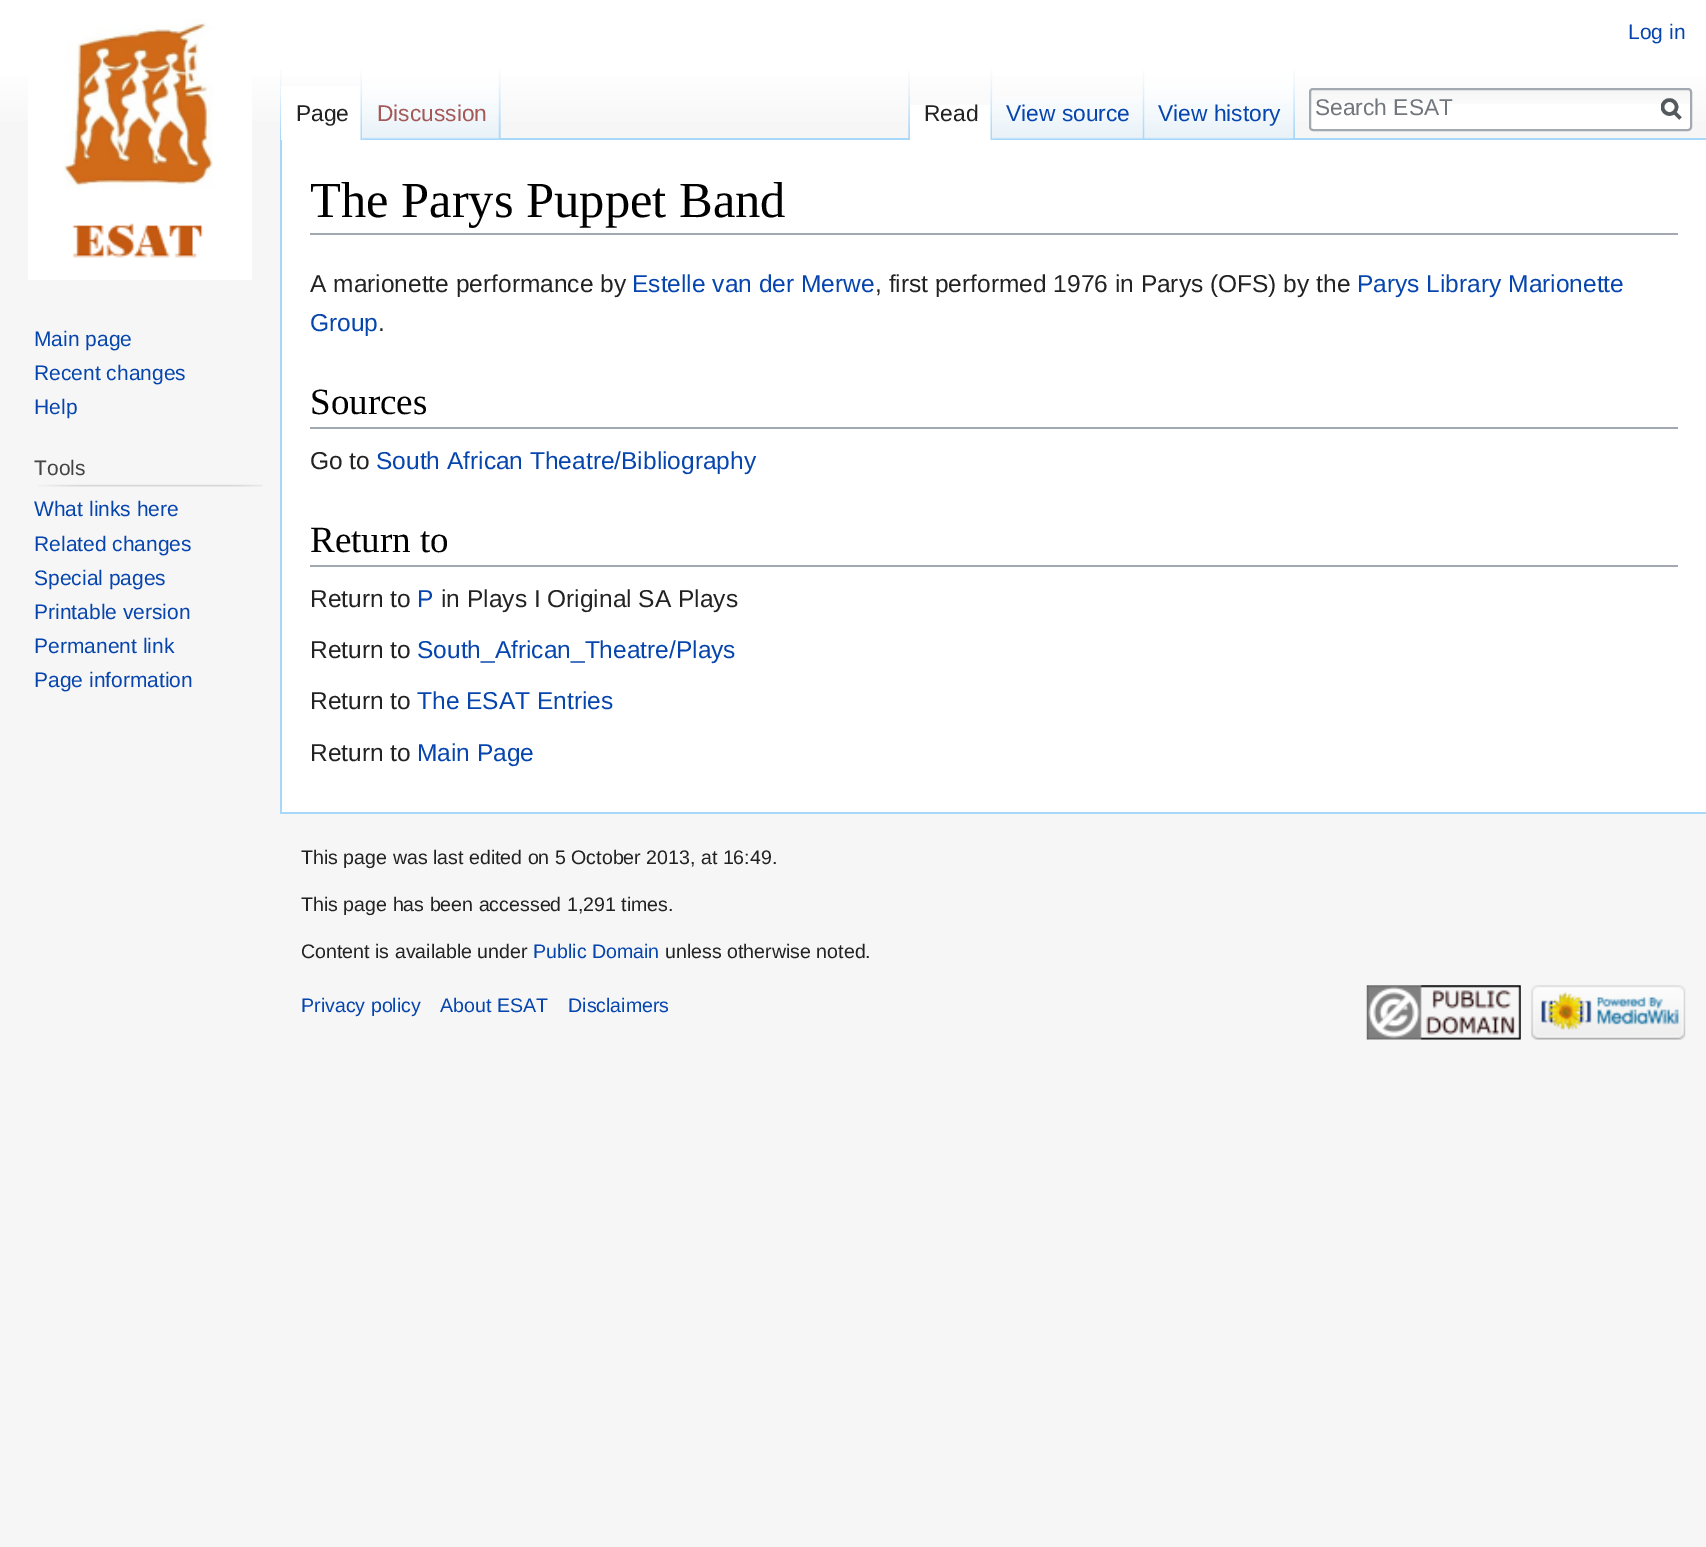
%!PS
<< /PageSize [1706 1547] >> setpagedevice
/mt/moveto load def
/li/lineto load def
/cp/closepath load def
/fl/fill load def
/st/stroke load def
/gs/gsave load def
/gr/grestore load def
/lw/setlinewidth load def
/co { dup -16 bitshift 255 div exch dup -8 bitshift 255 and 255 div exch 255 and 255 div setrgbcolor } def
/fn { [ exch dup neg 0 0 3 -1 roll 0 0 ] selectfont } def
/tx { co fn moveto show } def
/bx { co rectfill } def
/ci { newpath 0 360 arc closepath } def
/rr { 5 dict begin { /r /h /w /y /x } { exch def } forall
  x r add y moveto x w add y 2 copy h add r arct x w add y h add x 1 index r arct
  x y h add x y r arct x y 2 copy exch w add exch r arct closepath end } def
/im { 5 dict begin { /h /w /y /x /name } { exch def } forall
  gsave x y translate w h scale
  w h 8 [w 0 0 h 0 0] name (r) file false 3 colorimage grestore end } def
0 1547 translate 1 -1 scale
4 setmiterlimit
0 0 1706 1547 16#F6F6F6 bx
gs 0 0 mt 1706 0 li 1706 121 li 0 121 li cp clip newpath
<< /ShadingType 2 /ColorSpace /DeviceRGB /Coords [853 0 853 140] /Extend [true true] /Function << /FunctionType 3 /Domain [0 1] /Functions [<< /FunctionType 2 /Domain [0 1] /C0 [1 1 1] /C1 [1 1 1] /N 1 >> << /FunctionType 2 /Domain [0 1] /C0 [1 1 1] /C1 [.965 .965 .965] /N 1 >>] /Bounds [.5] /Encode [0 1 0 1] >> >> shfill gr
(media/1.raw) 280 70 2 68 im
(media/2.raw) 500 70 1 68 im
280 812 1426 2 16#A7D7F9 bx
280 138 2 676 16#A7D7F9 bx
281 86 82 54 16#FFFFFF bx
(media/3.raw) 360 70 3 70 im
500 138 1206 2 16#A7D7F9 bx
(media/4.raw) 362 70 139 70 im
(media/5.raw) 498 70 3 69 im
(media/6.raw) 908 70 2 68 im
910 105 83 35 16#FFFFFF bx
(media/7.raw) 990 70 3 70 im
(media/8.raw) 992 97 153 43 im
(media/9.raw) 1142 70 3 69 im
(media/10.raw) 1144 70 150 69 im
(media/11.raw) 1293 70 2 69 im
1309 88 383 43 4 rr fl
(media/12.raw) 1309 89 383 15 im
16#A2A9B1 co
2 lw
1310 89 381 41 3 rr st
16#54595D co
3.5 lw
1680.5 118.5 mt 1673.5 111.5 li st
gs
1661 98 21 23 rectclip
1669.5 107 7 ci st
gr
(media/13.raw) 28 19 224 261 im
(media/14.raw) 38 484 225 3 im
282 140 1424 672 16#FFFFFF bx
310 233 1368 2 16#A2A9B1 bx
310 427 1368 2 16#A2A9B1 bx
310 565 1368 2 16#A2A9B1 bx
(media/15.raw) 1366 985 155 55 im
(media/16.raw) 1531 985 155 55 im
(Log in) 1628 39 /LiberationSans-Regular 21 16#0645AD tx
(Page) 296 121 /LiberationSans-Regular 22.75 16#222222 tx
(Discussion) 377 121 /LiberationSans-Regular 22.75 16#A55858 tx
(Read) 924 121 /LiberationSans-Regular 22.75 16#222222 tx
(View source) 1006 121 /LiberationSans-Regular 22.75 16#0645AD tx
(View history) 1158 121 /LiberationSans-Regular 22.75 16#0645AD tx
(Search ESAT) 1315 115 /LiberationSans-Regular 22.75 16#72777D tx
(Main page) 34 346 /LiberationSans-Regular 21 16#0645AD tx
(Recent changes) 34 380 /LiberationSans-Regular 21 16#0645AD tx
(Help) 34 414 /LiberationSans-Regular 21 16#0645AD tx
(Tools) 34 475 /LiberationSans-Regular 21 16#444444 tx
(What links here) 34 516 /LiberationSans-Regular 21 16#0645AD tx
(Related changes) 34 551 /LiberationSans-Regular 21 16#0645AD tx
(Special pages) 34 585 /LiberationSans-Regular 21 16#0645AD tx
(Printable version) 34 619 /LiberationSans-Regular 21 16#0645AD tx
(Permanent link) 34 653 /LiberationSans-Regular 21 16#0645AD tx
(Page information) 34 687 /LiberationSans-Regular 21 16#0645AD tx
(The Parys Puppet Band) 310 217 /LiberationSerif-Regular 50.5 16#000000 tx
(A marionette performance by) 310 292 /LiberationSans-Regular 24.5 16#222222 tx
(Estelle van der Merwe) 632 292 /LiberationSans-Regular 24.5 16#0645AD tx
(, first performed 1976 in Parys \(OFS\) by the) 875 292 /LiberationSans-Regular 24.5 16#222222 tx
(Parys Library Marionette) 1357 292 /LiberationSans-Regular 24.5 16#0645AD tx
(Group) 310 331 /LiberationSans-Regular 24.5 16#0645AD tx
(.) 378 331 /LiberationSans-Regular 24.5 16#222222 tx
(Sources) 310 414 /LiberationSerif-Regular 37 16#000000 tx
(Go to) 310 469 /LiberationSans-Regular 24.5 16#222222 tx
(South African Theatre/Bibliography) 376 469 /LiberationSans-Regular 24.5 16#0645AD tx
(Return to) 310 552 /LiberationSerif-Regular 37 16#000000 tx
(Return to) 310 607 /LiberationSans-Regular 24.5 16#222222 tx
(P) 417 607 /LiberationSans-Regular 24.5 16#0645AD tx
(in Plays I Original SA Plays) 441 607 /LiberationSans-Regular 24.5 16#222222 tx
(Return to) 310 658 /LiberationSans-Regular 24.5 16#222222 tx
(South_African_Theatre/Plays) 417 658 /LiberationSans-Regular 24.5 16#0645AD tx
(Return to) 310 709 /LiberationSans-Regular 24.5 16#222222 tx
(The ESAT Entries) 417 709 /LiberationSans-Regular 24.5 16#0645AD tx
(Return to) 310 761 /LiberationSans-Regular 24.5 16#222222 tx
(Main Page) 417 761 /LiberationSans-Regular 24.5 16#0645AD tx
(This page was last edited on 5 October 2013, at 16:49.) 301 864 /LiberationSans-Regular 19.6 16#222222 tx
(This page has been accessed 1,291 times.) 301 911 /LiberationSans-Regular 19.6 16#222222 tx
(Content is available under) 301 958 /LiberationSans-Regular 19.6 16#222222 tx
(Public Domain) 533 958 /LiberationSans-Regular 19.6 16#0645AD tx
(unless otherwise noted.) 665 958 /LiberationSans-Regular 19.6 16#222222 tx
(Privacy policy) 301 1012 /LiberationSans-Regular 19.6 16#0645AD tx
(About ESAT) 440 1012 /LiberationSans-Regular 19.6 16#0645AD tx
(Disclaimers) 568 1012 /LiberationSans-Regular 19.6 16#0645AD tx
showpage
